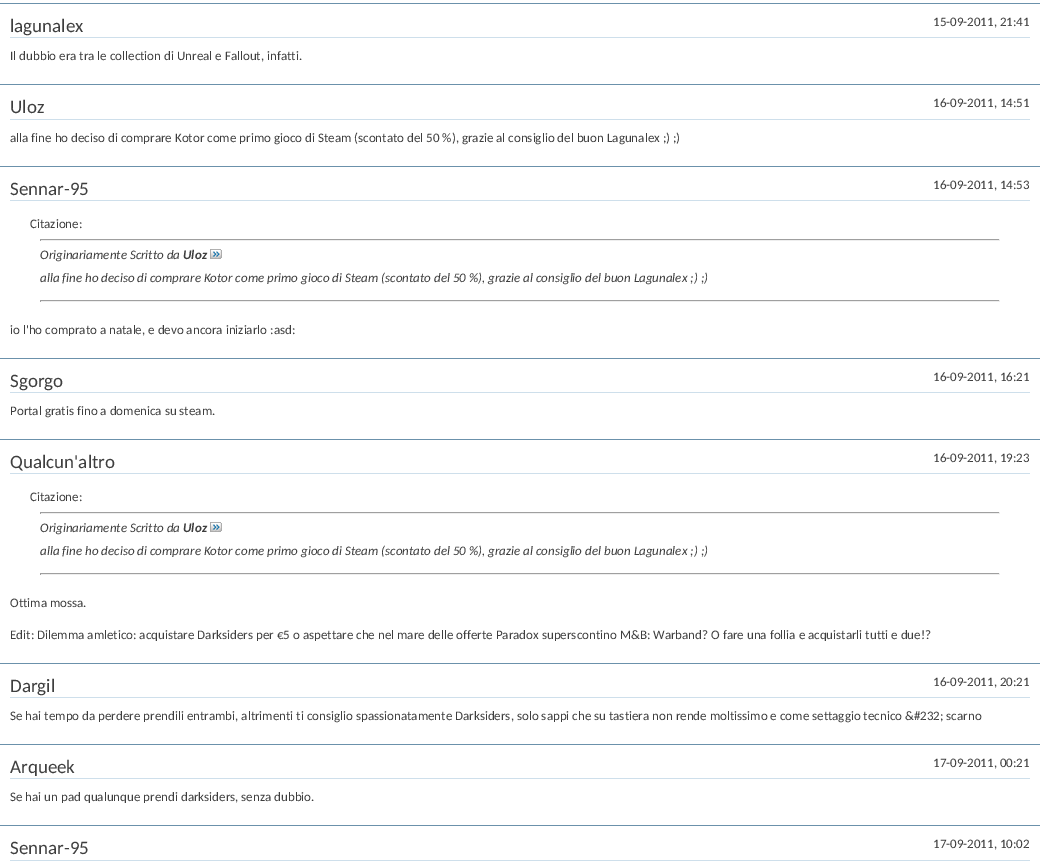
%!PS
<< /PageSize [1040 861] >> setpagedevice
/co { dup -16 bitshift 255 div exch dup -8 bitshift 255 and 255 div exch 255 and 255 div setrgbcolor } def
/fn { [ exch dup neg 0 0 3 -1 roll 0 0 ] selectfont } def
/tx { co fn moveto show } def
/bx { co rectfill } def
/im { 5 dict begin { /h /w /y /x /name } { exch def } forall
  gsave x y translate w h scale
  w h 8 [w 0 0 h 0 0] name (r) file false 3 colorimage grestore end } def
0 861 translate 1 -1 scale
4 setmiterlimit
0 0 1040 861 16#FFFFFF bx
0 3 1040 1 16#6B91AB bx
10 37 1020 1 16#CEDFEB bx
0 84 1040 1 16#6B91AB bx
10 119 1020 1 16#CEDFEB bx
0 166 1040 1 16#6B91AB bx
10 200 1020 1 16#CEDFEB bx
40 239 960 1 16#9F9F9F bx
999 239 1 2 16#EEEEEE bx
40 240 960 1 16#EEEEEE bx
40 239 1 2 16#9F9F9F bx
(media/1.raw) 210 249 12 10 im
40 300 960 1 16#9F9F9F bx
999 300 1 2 16#EEEEEE bx
40 301 960 1 16#EEEEEE bx
40 300 1 2 16#9F9F9F bx
0 358 1040 1 16#6B91AB bx
10 392 1020 1 16#CEDFEB bx
0 439 1040 1 16#6B91AB bx
10 473 1020 1 16#CEDFEB bx
40 512 960 1 16#9F9F9F bx
999 512 1 2 16#EEEEEE bx
40 513 960 1 16#EEEEEE bx
40 512 1 2 16#9F9F9F bx
(media/1.raw) 210 522 12 10 im
40 573 960 1 16#9F9F9F bx
999 573 1 2 16#EEEEEE bx
40 574 960 1 16#EEEEEE bx
40 573 1 2 16#9F9F9F bx
0 663 1040 1 16#6B91AB bx
10 697 1020 1 16#CEDFEB bx
0 744 1040 1 16#6B91AB bx
10 778 1020 1 16#CEDFEB bx
0 825 1040 1 16#6B91AB bx
10 860 1020 1 16#CEDFEB bx
(lagunalex) 10 32 /Carlito-Regular 19 16#3E3E3E tx
(15-09-2011, 21:41) 933 26 /Carlito-Regular 13 16#3E3E3E tx
(Il dubbio era tra le collection di Unreal e Fallout, infatti.) 10 60 /Carlito-Regular 13 16#3E3E3E tx
(Uloz) 10 113 /Carlito-Regular 19 16#3E3E3E tx
(16-09-2011, 14:51) 933 107 /Carlito-Regular 13 16#3E3E3E tx
(alla fine ho deciso di comprare Kotor come primo gioco di Steam \(scontato del 50 %\), grazie al consiglio del buon Lagunalex ;\) ;\)) 10 142 /Carlito-Regular 13 16#3E3E3E tx
(Sennar-95) 10 195 /Carlito-Regular 19 16#3E3E3E tx
(16-09-2011, 14:53) 933 189 /Carlito-Regular 13 16#3E3E3E tx
(Citazione:) 30 228 /Carlito-Regular 13 16#3E3E3E tx
(Originariamente Scritto da) 40 259 /Carlito-Italic 13 16#3E3E3E tx
(Uloz) 183 259 /Carlito-BoldItalic 13 16#3E3E3E tx
(alla fine ho deciso di comprare Kotor come primo gioco di Steam \(scontato del 50 %\), grazie al consiglio del buon Lagunalex ;\) ;\)) 40 282 /Carlito-Italic 13 16#3E3E3E tx
(io l'ho comprato a natale, e devo ancora iniziarlo :asd:) 10 334 /Carlito-Regular 13 16#3E3E3E tx
(Sgorgo) 10 387 /Carlito-Regular 19 16#3E3E3E tx
(16-09-2011, 16:21) 933 381 /Carlito-Regular 13 16#3E3E3E tx
(Portal gratis fino a domenica su steam.) 10 415 /Carlito-Regular 13 16#3E3E3E tx
(Qualcun'altro) 10 468 /Carlito-Regular 19 16#3E3E3E tx
(16-09-2011, 19:23) 933 462 /Carlito-Regular 13 16#3E3E3E tx
(Citazione:) 30 501 /Carlito-Regular 13 16#3E3E3E tx
(Originariamente Scritto da) 40 532 /Carlito-Italic 13 16#3E3E3E tx
(Uloz) 183 532 /Carlito-BoldItalic 13 16#3E3E3E tx
(alla fine ho deciso di comprare Kotor come primo gioco di Steam \(scontato del 50 %\), grazie al consiglio del buon Lagunalex ;\) ;\)) 40 555 /Carlito-Italic 13 16#3E3E3E tx
(Ottima mossa.) 10 607 /Carlito-Regular 13 16#3E3E3E tx
(Edit: Dilemma amletico: acquistare Darksiders per €5 o aspettare che nel mare delle offerte Paradox superscontino M&B: Warband? O fare una follia e acquistarli tutti e due!?) 10 639 /Carlito-Regular 13 16#3E3E3E tx
(Dargil) 10 692 /Carlito-Regular 19 16#3E3E3E tx
(16-09-2011, 20:21) 933 686 /Carlito-Regular 13 16#3E3E3E tx
(Se hai tempo da perdere prendili entrambi, altrimenti ti consiglio spassionatamente Darksiders, solo sappi che su tastiera non rende moltissimo e come settaggio tecnico &#232; scarno) 10 720 /Carlito-Regular 13 16#3E3E3E tx
(Arqueek) 10 773 /Carlito-Regular 19 16#3E3E3E tx
(17-09-2011, 00:21) 933 767 /Carlito-Regular 13 16#3E3E3E tx
(Se hai un pad qualunque prendi darksiders, senza dubbio.) 10 801 /Carlito-Regular 13 16#3E3E3E tx
(Sennar-95) 10 854 /Carlito-Regular 19 16#3E3E3E tx
(17-09-2011, 10:02) 933 848 /Carlito-Regular 13 16#3E3E3E tx
showpage
